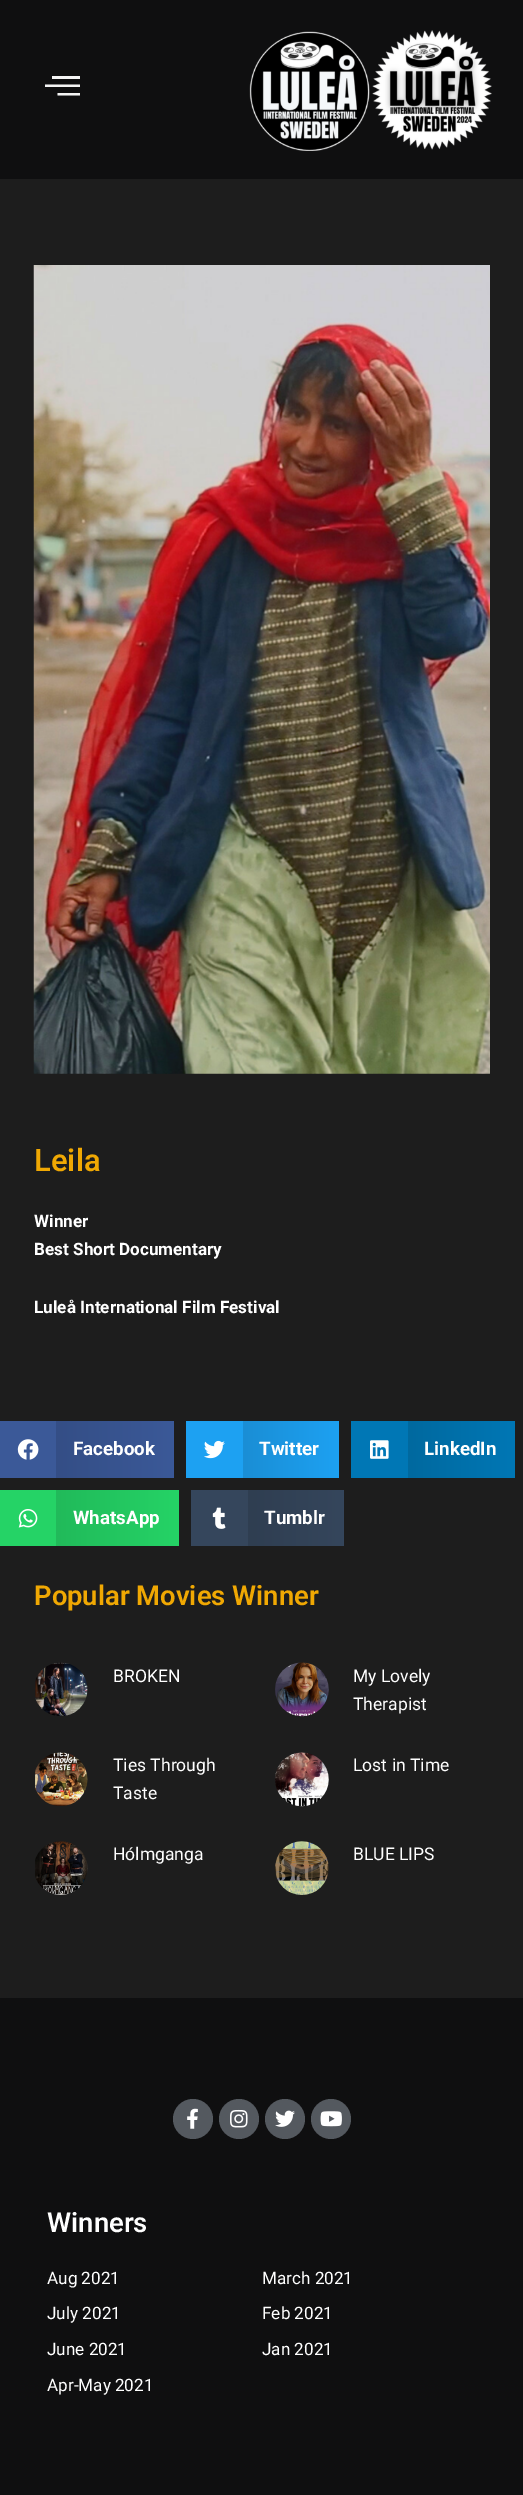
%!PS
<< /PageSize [523 2495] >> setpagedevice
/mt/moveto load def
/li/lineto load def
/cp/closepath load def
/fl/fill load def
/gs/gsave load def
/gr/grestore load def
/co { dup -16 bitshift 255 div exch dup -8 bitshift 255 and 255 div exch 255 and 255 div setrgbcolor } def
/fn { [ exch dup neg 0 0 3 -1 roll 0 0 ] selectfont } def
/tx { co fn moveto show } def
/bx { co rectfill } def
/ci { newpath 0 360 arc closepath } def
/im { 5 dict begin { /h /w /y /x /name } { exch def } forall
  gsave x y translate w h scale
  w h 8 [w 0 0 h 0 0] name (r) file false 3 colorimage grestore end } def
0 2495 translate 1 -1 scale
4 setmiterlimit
0 0 523 2495 16#1D1D1D bx
0 0 523 179 16#0F0F10 bx
16#F4F4F4 co
45 87 mt 80 87 li 80 84.5 li 45 84.5 li cp 57.5 95.5 mt 80 95.5 li 80 93 li 57.5 93 li cp 52 76 mt 52 79 li 80 79 li 80 76 li cp fl
(media/1.raw) 249 30 243 121 im
(media/2.raw) 33 265 457 809 im
0 1421 56 57 16#3B5998 bx
(media/3.raw) 17 1439 22 21 im
gs 56 1421 mt 174 1421 li 174 1478 li 56 1478 li cp clip newpath
<< /ShadingType 2 /ColorSpace /DeviceRGB /Coords [56 1449 174 1449] /Extend [true true] /Function << /FunctionType 2 /Domain [0 1] /C0 [.204 .306 .525] /C1 [.231 .349 .596] /N 1 >> >> shfill gr
186 1421 57 57 16#1DA1F2 bx
(media/4.raw) 204 1440 21 19 im
gs 243 1421 mt 339 1421 li 339 1478 li 243 1478 li cp clip newpath
<< /ShadingType 2 /ColorSpace /DeviceRGB /Coords [243 1449 339 1449] /Extend [true true] /Function << /FunctionType 2 /Domain [0 1] /C0 [.102 .557 .835] /C1 [.114 .631 .949] /N 1 >> >> shfill gr
351 1421 57 57 16#0077B5 bx
(media/5.raw) 370 1440 19 19 im
gs 408 1421 mt 515 1421 li 515 1478 li 408 1478 li cp clip newpath
<< /ShadingType 2 /ColorSpace /DeviceRGB /Coords [408 1449 515 1449] /Extend [true true] /Function << /FunctionType 2 /Domain [0 1] /C0 [0 .412 .624] /C1 [0 .467 .71] /N 1 >> >> shfill gr
0 1490 56 56 16#25D366 bx
(media/6.raw) 18 1509 20 19 im
gs 56 1490 mt 179 1490 li 179 1546 li 56 1546 li cp clip newpath
<< /ShadingType 2 /ColorSpace /DeviceRGB /Coords [56 1518 179 1518] /Extend [true true] /Function << /FunctionType 2 /Domain [0 1] /C0 [.129 .729 .353] /C1 [.145 .827 .4] /N 1 >> >> shfill gr
191 1490 57 56 16#35465C bx
(media/7.raw) 212 1507 14 22 im
gs 248 1490 mt 344 1490 li 344 1546 li 248 1546 li cp clip newpath
<< /ShadingType 2 /ColorSpace /DeviceRGB /Coords [248 1518 344 1518] /Extend [true true] /Function << /FunctionType 2 /Domain [0 1] /C0 [.184 .243 .318] /C1 [.208 .275 .361] /N 1 >> >> shfill gr
(media/8.raw) 35 1662 53 54 im
(media/9.raw) 275 1662 54 55 im
(media/10.raw) 35 1752 53 54 im
(media/11.raw) 275 1752 54 55 im
(media/12.raw) 35 1841 53 54 im
(media/13.raw) 275 1841 54 54 im
0 1998 523 497 16#0F0F10 bx
16#54595F co
193 2119 20 ci fl
(media/14.raw) 187 2108 11 21 im
239 2119 20 ci fl
(media/15.raw) 230 2109 18 19 im
285 2119 20 ci fl
(media/16.raw) 275 2110 20 17 im
331 2119 20 ci fl
(media/17.raw) 320 2111 22 16 im
(Leila) 34 1171 /Heebo-SemiBold 31 16#F0A803 tx
(Winner) 34 1227 /Heebo-Bold 17.1 16#FFFFFF tx
(Best Short Documentary) 34 1255 /Heebo-Bold 17.1 16#FFFFFF tx
(Luleå International Film Festival) 34 1313 /Heebo-Bold 17.1 16#FFFFFF tx
(Facebook) 73 1455 /Roboto-Bold 18.75 16#FFFFFF tx
(Twitter) 259 1455 /Roboto-Bold 18.75 16#FFFFFF tx
(LinkedIn) 424 1455 /Roboto-Bold 18.75 16#FFFFFF tx
(WhatsApp) 73 1524 /Roboto-Bold 18.75 16#FFFFFF tx
(Tumblr) 264 1524 /Roboto-Bold 18.75 16#FFFFFF tx
(Popular Movies Winner) 34 1605 /Roboto-SemiBold 27.4 16#F0A803 tx
(BROKEN) 113 1682 /Heebo-Regular 17.5 16#FFFFFF tx
(My Lovely) 353 1682 /Heebo-Regular 17.5 16#FFFFFF tx
(Therapist) 353 1710 /Heebo-Regular 17.5 16#FFFFFF tx
(Ties Through) 113 1771 /Heebo-Regular 17.5 16#FFFFFF tx
(Taste) 113 1799 /Heebo-Regular 17.5 16#FFFFFF tx
(Lost in Time) 353 1771 /Heebo-Regular 17.5 16#FFFFFF tx
(Hólmganga) 113 1860 /Heebo-Regular 17.5 16#FFFFFF tx
(BLUE LIPS) 353 1860 /Heebo-Regular 17.5 16#FFFFFF tx
(Winners) 47 2232 /Heebo-SemiBold 27.4 16#FFFFFF tx
(Aug 2021) 47 2284 /Heebo-Regular 17.1 16#FFFFFF tx
(July 2021) 47 2319 /Heebo-Regular 17.1 16#FFFFFF tx
(June 2021) 47 2355 /Heebo-Regular 17.1 16#FFFFFF tx
(Apr-May 2021) 47 2391 /Heebo-Regular 17.1 16#FFFFFF tx
(March 2021) 262 2284 /Heebo-Regular 17.1 16#FFFFFF tx
(Feb 2021) 262 2319 /Heebo-Regular 17.1 16#FFFFFF tx
(Jan 2021) 262 2355 /Heebo-Regular 17.1 16#FFFFFF tx
showpage
